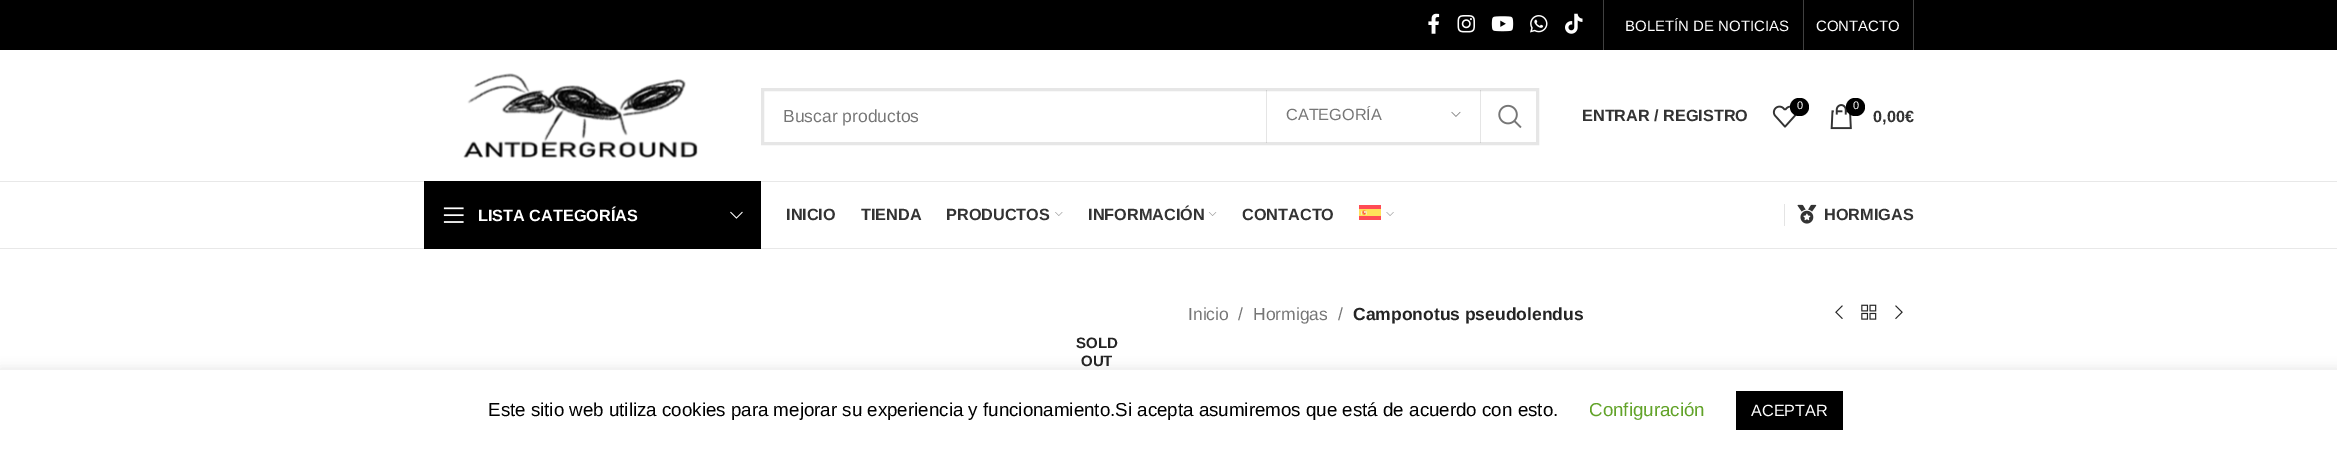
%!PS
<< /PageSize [2337 451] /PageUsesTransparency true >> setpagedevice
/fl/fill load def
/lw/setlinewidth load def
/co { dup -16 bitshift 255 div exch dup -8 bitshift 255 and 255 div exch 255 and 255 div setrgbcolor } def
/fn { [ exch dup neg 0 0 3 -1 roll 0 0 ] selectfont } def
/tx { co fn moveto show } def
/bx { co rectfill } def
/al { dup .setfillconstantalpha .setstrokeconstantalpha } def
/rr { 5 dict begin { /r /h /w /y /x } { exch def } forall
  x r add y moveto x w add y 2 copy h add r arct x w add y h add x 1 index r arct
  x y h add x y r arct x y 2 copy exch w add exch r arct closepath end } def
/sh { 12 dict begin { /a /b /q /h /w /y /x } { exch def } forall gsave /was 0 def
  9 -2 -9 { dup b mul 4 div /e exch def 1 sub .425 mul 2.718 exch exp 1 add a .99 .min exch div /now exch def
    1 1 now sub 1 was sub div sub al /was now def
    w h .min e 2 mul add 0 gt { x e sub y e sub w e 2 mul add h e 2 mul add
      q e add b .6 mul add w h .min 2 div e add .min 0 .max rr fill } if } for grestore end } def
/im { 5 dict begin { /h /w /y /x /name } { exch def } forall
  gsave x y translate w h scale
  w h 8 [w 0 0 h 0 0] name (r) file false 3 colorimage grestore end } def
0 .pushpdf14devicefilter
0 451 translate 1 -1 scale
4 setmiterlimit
0 0 2337 451 16#FFFFFF bx
0 0 2337 50 16#000000 bx
(media/1.raw) 1428 13 12 21 im
(media/2.raw) 1457 15 18 18 im
(media/3.raw) 1491 16 23 16 im
(media/4.raw) 1530 15 18 18 im
(media/5.raw) 1565 13 18 21 im
1603 0 1 50 16#404040 bx
1803 0 1 50 16#404040 bx
1913 0 1 50 16#404040 bx
0 181 2337 1 16#E8E8E8 bx
(media/6.raw) 463 73 235 85 im
16#E6E6E6 co
3 lw
762.5 89.5 775 54 rectstroke
0.1 al
1480 90 1 53 16#000000 bx
1266 90 1 53 16#000000 bx
1 al
(media/7.raw) 1451 111 10 6 im
(media/8.raw) 1498 104 24 25 im
(media/9.raw) 1772 105 25 23 im
1790 98 19 18 9 rr fl
(media/10.raw) 1830 104 22 26 im
1846 98 19 18 9 rr fl
0 248 2337 1 16#E8E8E8 bx
424 181 337 68 16#000000 bx
(media/11.raw) 443 207 21 16 im
(media/12.raw) 730 211 13 8 im
(media/13.raw) 1055 212 8 4 im
(media/14.raw) 1208 212 9 4 im
(media/15.raw) 1359 205 22 15 im
(media/16.raw) 1386 212 8 4 im
1784 204 1 22 16#E4E4E4 bx
(media/17.raw) 1797 204 20 20 im
(media/18.raw) 1835 305 8 14 im
(media/19.raw) 1861 304 16 16 im
(media/20.raw) 1895 305 8 15 im
16#ACABAB co
0 369 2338 81 0 6 .3 sh
0 370 2337 81 16#FFFFFF bx
1736 391 107 39 16#000000 bx
(BOLETÍN DE NOTICIAS) 1625 31 /LiberationSans-Regular 15 16#FFFFFF tx
(CONTACTO) 1816 31 /LiberationSans-Regular 15 16#FFFFFF tx
(Buscar productos) 783 122 /LiberationSans-Regular 17.5 16#767676 tx
(CATEGORÍA) 1286 120 /LiberationSans-Regular 16.25 16#767676 tx
(ENTRAR / REGISTRO) 1582 121 /LiberationSans-Bold 16.25 16#333333 tx
(0) 1797 109 /LiberationSans-Regular 11 16#FFFFFF tx
(0) 1853 109 /LiberationSans-Regular 11 16#FFFFFF tx
(0,00€) 1873 122 /LiberationSans-Bold 16.25 16#333333 tx
(LISTA CATEGORÍAS) 478 221 /LiberationSans-Bold 16.25 16#FFFFFF tx
(INICIO) 786 220 /LiberationSans-Bold 16.25 16#333333 tx
(TIENDA) 861 220 /LiberationSans-Bold 16.25 16#333333 tx
(PRODUCTOS) 946 220 /LiberationSans-Bold 16.25 16#333333 tx
(INFORMACIÓN) 1088 220 /LiberationSans-Bold 16.25 16#333333 tx
(CONTACTO) 1242 220 /LiberationSans-Bold 16.25 16#333333 tx
(HORMIGAS) 1824 220 /LiberationSans-Bold 16.25 16#333333 tx
(Inicio) 1188 320 /LiberationSans-Regular 17.5 16#767676 tx
(/) 1238 320 /LiberationSans-Regular 17.5 16#767676 tx
(Hormigas) 1253 320 /LiberationSans-Regular 17.5 16#767676 tx
(/) 1338 320 /LiberationSans-Regular 17.5 16#767676 tx
(Camponotus pseudolendus) 1353 320 /LiberationSans-Bold 17.5 16#242424 tx
(SOLD) 1076 348 /LiberationSans-Bold 15 16#242424 tx
(OUT) 1081 366 /LiberationSans-Bold 15 16#242424 tx
(Este sitio web utiliza cookies para mejorar su experiencia y funcionamiento.Si acepta asumiremos que está de acuerdo con esto.) 488 416 /LiberationSans-Regular 18.75 16#000000 tx
(Configuración) 1589 416 /LiberationSans-Regular 18.75 16#62A329 tx
(ACEPTAR) 1751 416 /LiberationSans-Regular 16.25 16#FFFFFF tx
.poppdf14devicefilter showpage
